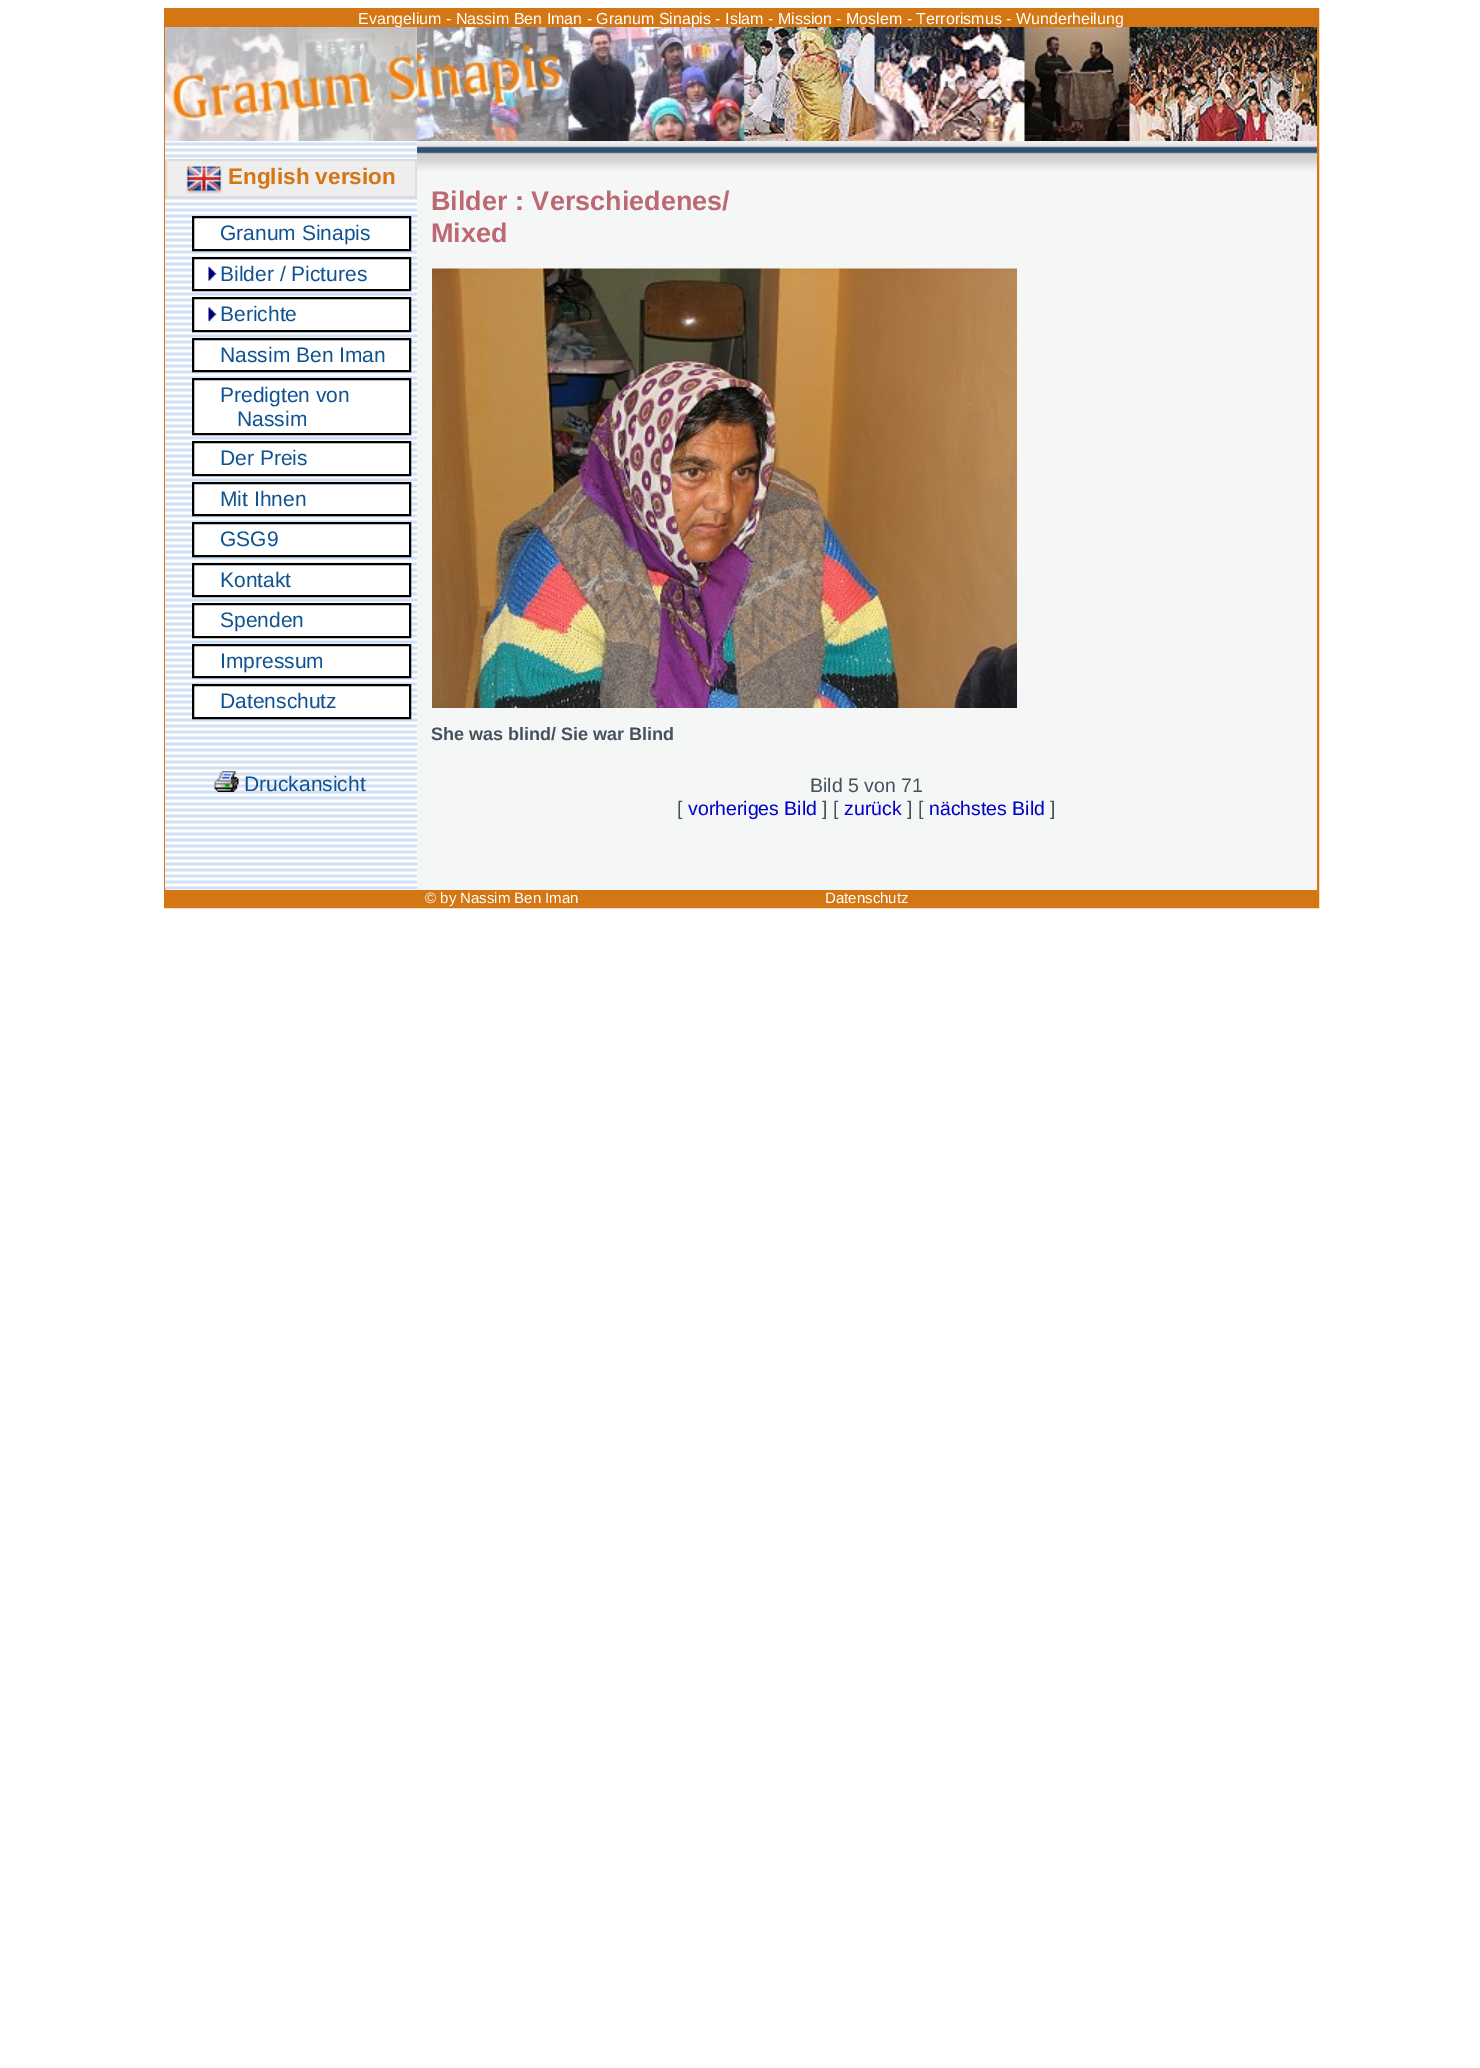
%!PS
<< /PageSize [1480 2068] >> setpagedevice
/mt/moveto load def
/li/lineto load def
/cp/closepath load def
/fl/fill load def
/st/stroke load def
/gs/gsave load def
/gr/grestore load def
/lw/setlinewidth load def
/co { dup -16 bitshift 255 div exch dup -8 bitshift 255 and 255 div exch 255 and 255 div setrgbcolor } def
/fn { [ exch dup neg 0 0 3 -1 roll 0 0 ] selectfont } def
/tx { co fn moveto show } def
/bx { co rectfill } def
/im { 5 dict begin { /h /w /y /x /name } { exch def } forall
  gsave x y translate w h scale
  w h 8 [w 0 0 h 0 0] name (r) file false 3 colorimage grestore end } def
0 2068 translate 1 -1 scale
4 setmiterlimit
0 0 1480 2068 16#FFFFFF bx
16#D57614 co
2 lw
165 9 1153 898 rectstroke
166 10 1151 17 16#D57614 bx
(media/1.raw) 165 141 252 749 im
(media/2.raw) 165 27 252 114 im
16#EEEEEE co
166 160 mt 416 160 li 416 197 li 166 197 li cp gs fl gr
16#DDDDDD co
st
(media/3.raw) 186 166 36 28 im
194 220 215 28 16#FFFFFF bx
16#000000 co
193 217 217 33 rectstroke
16#FFFFFF co
193 258 mt 410 258 li 410 290 li 193 290 li cp gs fl gr
16#000000 co
st
(media/4.raw) 208 266 9 15 im
16#FFFFFF co
193 298 mt 410 298 li 410 331 li 193 331 li cp gs fl gr
16#000000 co
st
(media/5.raw) 208 307 9 15 im
194 340 215 28 16#FFFFFF bx
16#000000 co
193 339 217 32 rectstroke
194 382 215 51 16#FFFFFF bx
16#000000 co
193 379 217 55 rectstroke
16#FFFFFF co
193 442 mt 410 442 li 410 475 li 193 475 li cp gs fl gr
16#000000 co
st
194 484 215 28 16#FFFFFF bx
16#000000 co
193 483 217 32 rectstroke
194 526 215 28 16#FFFFFF bx
16#000000 co
193 523 217 33 rectstroke
16#FFFFFF co
193 564 mt 410 564 li 410 596 li 193 596 li cp gs fl gr
16#000000 co
st
16#FFFFFF co
193 604 mt 410 604 li 410 637 li 193 637 li cp gs fl gr
16#000000 co
st
194 646 215 28 16#FFFFFF bx
16#000000 co
193 645 217 32 rectstroke
194 688 215 28 16#FFFFFF bx
16#000000 co
193 685 217 33 rectstroke
(media/6.raw) 214 771 25 21 im
417 171 900 719 16#F5F7F6 bx
(media/7.raw) 417 27 900 114 im
(media/8.raw) 417 141 900 30 im
(media/9.raw) 432 268 585 440 im
166 890 1151 16 16#D57614 bx
(Evangelium - Nassim Ben Iman - Granum Sinapis - Islam - Mission - Moslem - Terrorismus - Wunderheilung) 358 24 /LiberationSans-Regular 16 16#FFFFFF tx
(English version) 228 184 /LiberationSans-Bold 22.5 16#D57614 tx
(Granum Sinapis) 220 240 /LiberationSans-Regular 21 16#0E5292 tx
(Bilder / Pictures) 220 281 /LiberationSans-Regular 21 16#0E5292 tx
(Berichte) 220 321 /LiberationSans-Regular 21 16#0E5292 tx
(Nassim Ben Iman) 220 362 /LiberationSans-Regular 21 16#0E5292 tx
(Predigten von) 220 402 /LiberationSans-Regular 21 16#0E5292 tx
(Nassim) 237 426 /LiberationSans-Regular 21 16#0E5292 tx
(Der Preis) 220 465 /LiberationSans-Regular 21 16#0E5292 tx
(Mit Ihnen) 220 506 /LiberationSans-Regular 21 16#0E5292 tx
(GSG9) 220 546 /LiberationSans-Regular 21 16#0E5292 tx
(Kontakt) 220 587 /LiberationSans-Regular 21 16#0E5292 tx
(Spenden) 220 627 /LiberationSans-Regular 21 16#0E5292 tx
(Impressum) 220 668 /LiberationSans-Regular 21 16#0E5292 tx
(Datenschutz) 220 708 /LiberationSans-Regular 21 16#0E5292 tx
(Druckansicht) 244 791 /LiberationSans-Regular 21 16#0E5292 tx
(Bilder : Verschiedenes/) 431 210 /LiberationSans-Bold 27 16#BD6973 tx
(Mixed) 431 242 /LiberationSans-Bold 27 16#BD6973 tx
(She was blind/ Sie war Blind) 431 740 /LiberationSans-Bold 18 16#45525D tx
(Bild 5 von 71) 810 792 /LiberationSans-Regular 19.5 16#45525D tx
([) 677 815 /LiberationSans-Regular 19.5 16#45525D tx
(vorheriges Bild) 688 815 /LiberationSans-Regular 19.5 16#0000CC tx
(] [) 822 815 /LiberationSans-Regular 19.5 16#45525D tx
(zurück) 844 815 /LiberationSans-Regular 19.5 16#0000CC tx
(] [) 907 815 /LiberationSans-Regular 19.5 16#45525D tx
(nächstes Bild) 929 815 /LiberationSans-Regular 19.5 16#0000CC tx
(]) 1050 815 /LiberationSans-Regular 19.5 16#45525D tx
(© by Nassim Ben Iman) 425 903 /LiberationSans-Regular 15 16#FFFFFF tx
(Datenschutz) 825 903 /LiberationSans-Regular 15 16#FFFFFF tx
showpage
